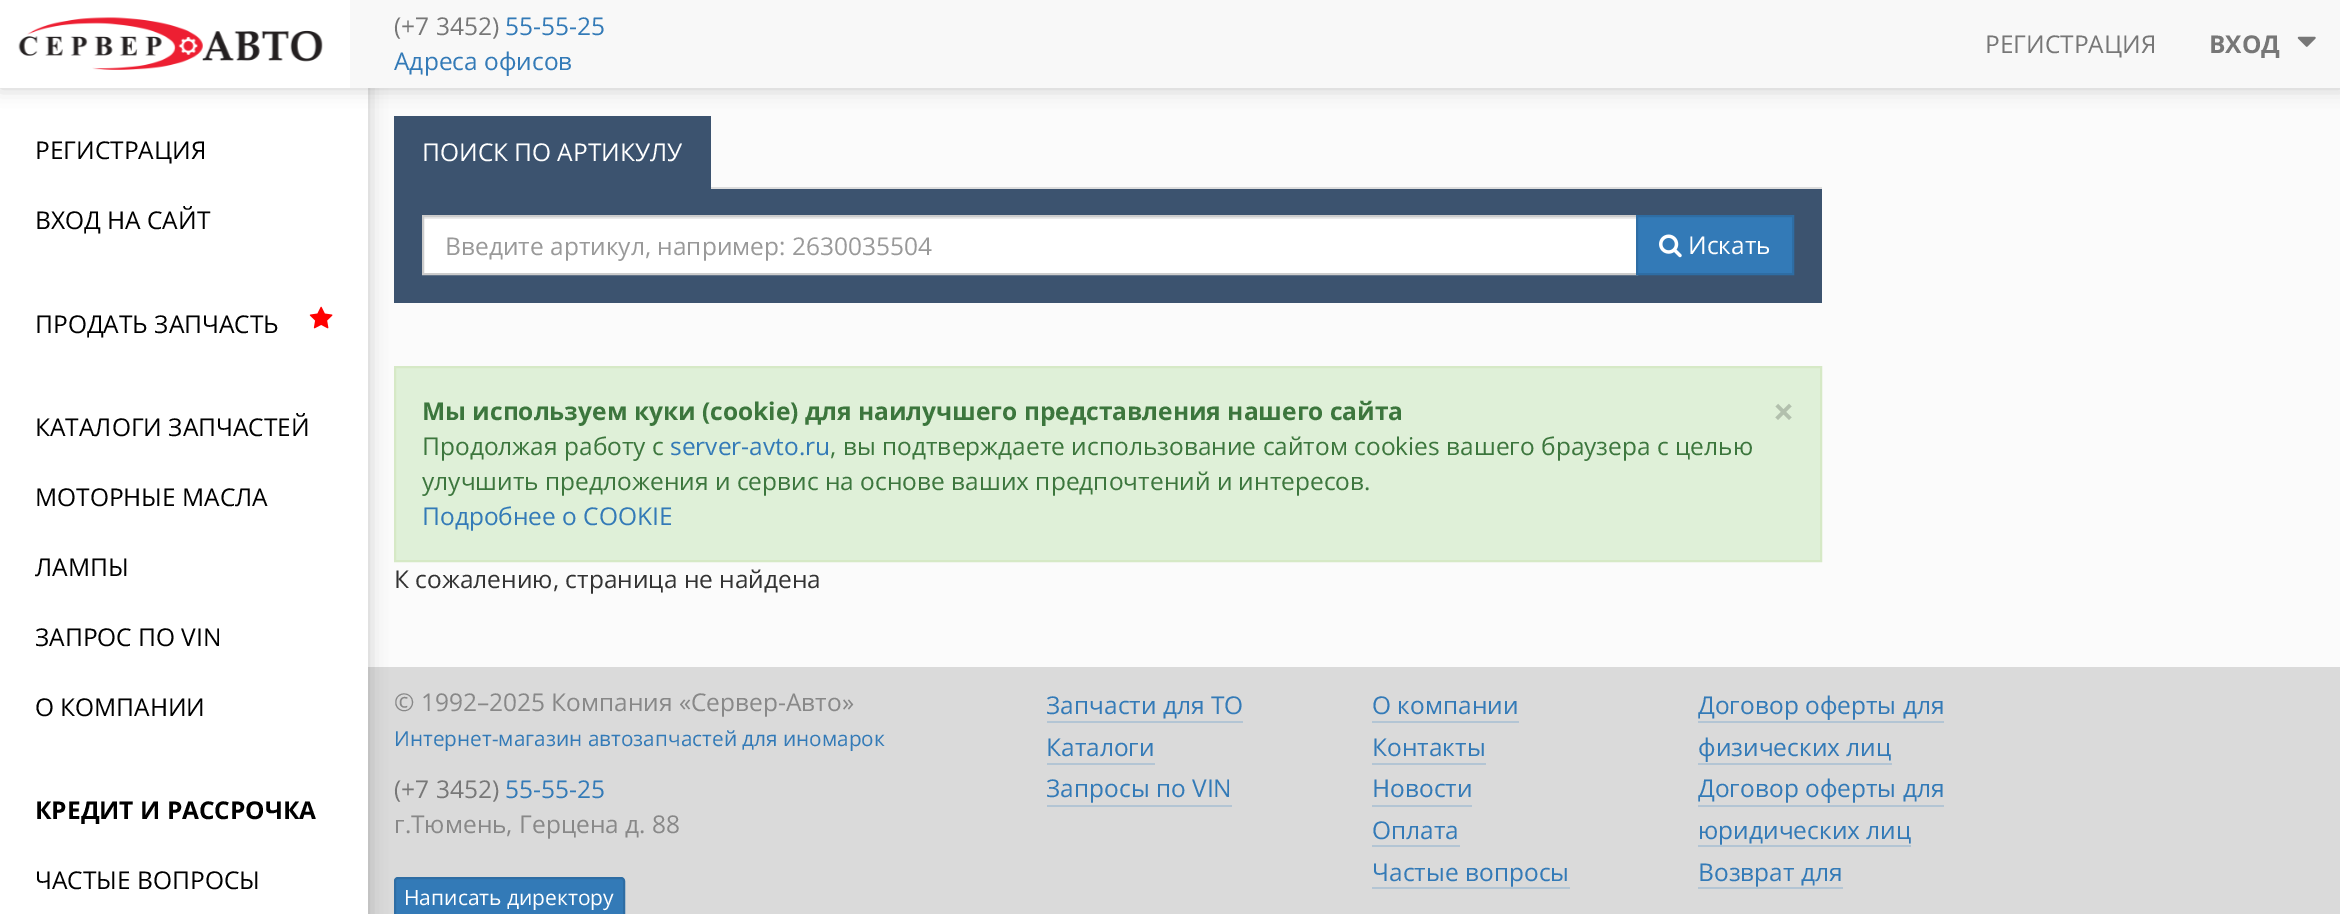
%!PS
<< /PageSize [2340 914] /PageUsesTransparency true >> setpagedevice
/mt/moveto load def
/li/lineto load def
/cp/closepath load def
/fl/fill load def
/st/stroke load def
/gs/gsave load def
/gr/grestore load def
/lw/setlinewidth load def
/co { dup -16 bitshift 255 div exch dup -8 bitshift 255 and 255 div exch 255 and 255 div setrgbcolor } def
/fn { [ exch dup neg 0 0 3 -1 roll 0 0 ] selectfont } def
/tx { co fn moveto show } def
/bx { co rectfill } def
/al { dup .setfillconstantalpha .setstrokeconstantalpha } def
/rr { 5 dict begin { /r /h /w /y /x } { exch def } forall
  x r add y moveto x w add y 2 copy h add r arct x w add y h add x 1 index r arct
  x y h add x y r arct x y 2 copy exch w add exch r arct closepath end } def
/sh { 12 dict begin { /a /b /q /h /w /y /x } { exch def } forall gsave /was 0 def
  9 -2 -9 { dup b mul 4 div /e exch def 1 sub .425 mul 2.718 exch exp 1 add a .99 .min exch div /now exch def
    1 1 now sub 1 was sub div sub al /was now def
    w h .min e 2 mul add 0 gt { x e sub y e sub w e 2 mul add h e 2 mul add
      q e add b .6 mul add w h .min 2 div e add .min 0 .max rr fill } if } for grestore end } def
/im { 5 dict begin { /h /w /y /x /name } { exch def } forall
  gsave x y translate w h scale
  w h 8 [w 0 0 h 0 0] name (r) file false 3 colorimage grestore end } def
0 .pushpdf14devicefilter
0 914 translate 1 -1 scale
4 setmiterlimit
0 0 2340 914 16#FBFBFB bx
394 116 317 73 16#3C536F bx
394 189 1428 114 16#3C536F bx
16#DFF0D8 co
395 367 mt 1821 367 li 1821 561 li 395 561 li cp gs fl gr
16#D6E9C6 co
2 lw
st
368 667 1972 247 16#DADADA bx
16#337AB7 co
395 878 229 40 3 rr gs fl gr
16#2E6DA4 co
st
16#000000 co
0 0 368 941 0 9 .2 sh
0 88 368 826 16#FFFFFF bx
16#000000 co
0 0 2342 88 0 9 .2 sh
350 0 1990 88 16#F8F8F8 bx
0 0 350 88 16#FFFFFF bx
(media/1.raw) 18 17 305 53 im
(media/2.raw) 2297 36 19 11 im
(media/3.raw) 309 306 24 23 im
711 187 1111 2 16#DDDDDD bx
424 219 1212 54 16#FFFFFF bx
424 217 1212 2 16#ECECEC bx
16#CCCCCC co
423 216 1214 58 rectstroke
16#337AB7 co
1637 216 mt 1793 216 li 1793 274 li 1637 274 li cp gs fl gr
16#2E6DA4 co
st
(media/4.raw) 1659 234 23 24 im
1047 721 196 2 16#B3C5D4 bx
1047 763 108 2 16#B3C5D4 bx
1047 805 185 2 16#B3C5D4 bx
1372 721 147 2 16#B3C5D4 bx
1372 763 114 2 16#B3C5D4 bx
1372 805 100 2 16#B3C5D4 bx
1372 845 88 2 16#B3C5D4 bx
1372 887 198 2 16#B3C5D4 bx
1698 721 246 2 16#B3C5D4 bx
1698 763 194 2 16#B3C5D4 bx
1698 805 246 2 16#B3C5D4 bx
1698 845 213 2 16#B3C5D4 bx
1698 887 145 2 16#B3C5D4 bx
(\(+7 3452\)) 394 35 /OpenSans-Regular 24.5 16#777777 tx
(55-55-25) 505 35 /OpenSans-Regular 24.5 16#337AB7 tx
(Адреса офисов) 394 70 /OpenSans-Regular 24.5 16#337AB7 tx
(РЕГИСТРАЦИЯ) 1985 53 /OpenSans-Regular 24.5 16#777777 tx
(ВХОД) 2209 53 /OpenSans-Bold 24.5 16#777777 tx
(РЕГИСТРАЦИЯ) 35 159 /OpenSans-Regular 24.5 16#000000 tx
(ВХОД НА САЙТ) 35 229 /OpenSans-Regular 24.5 16#000000 tx
(ПРОДАТЬ ЗАПЧАСТЬ) 35 333 /OpenSans-Regular 24.5 16#000000 tx
(КАТАЛОГИ ЗАПЧАСТЕЙ) 35 436 /OpenSans-Regular 24.5 16#000000 tx
(МОТОРНЫЕ МАСЛА) 35 506 /OpenSans-Regular 24.5 16#000000 tx
(ЛАМПЫ) 35 576 /OpenSans-Regular 24.5 16#000000 tx
(ЗАПРОС ПО VIN) 35 646 /OpenSans-Regular 24.5 16#000000 tx
(О КОМПАНИИ) 35 716 /OpenSans-Regular 24.5 16#000000 tx
(КРЕДИТ И РАССРОЧКА) 35 819 /OpenSans-Bold 24.5 16#000000 tx
(ЧАСТЫЕ ВОПРОСЫ) 35 889 /OpenSans-Regular 24.5 16#000000 tx
(ПОИСК ПО АРТИКУЛУ) 422 161 /OpenSans-Regular 24.5 16#FFFFFF tx
(Введите артикул, например: 2630035504) 445 255 /OpenSans-Regular 24.5 16#999999 tx
(Искать) 1688 254 /OpenSans-Regular 24.5 16#FFFFFF tx
(Мы используем куки \(cookie\) для наилучшего представления нашего сайта) 422 420 /OpenSans-Bold 24.5 16#3C763D tx
(×) 1773 425 /OpenSans-Bold 37 16#B2C0AD tx
(Продолжая работу с) 422 455 /OpenSans-Regular 24.5 16#3C763D tx
(server-avto.ru) 670 455 /OpenSans-Regular 24.5 16#337AB7 tx
(, вы подтверждаете использование сайтом cookies вашего браузера с целью) 830 455 /OpenSans-Regular 24.5 16#3C763D tx
(улучшить предложения и сервис на основе ваших предпочтений и интересов.) 422 490 /OpenSans-Regular 24.5 16#3C763D tx
(Подробнее о COOKIE) 422 525 /OpenSans-Regular 24.5 16#337AB7 tx
(К сожалению, страница не найдена) 394 588 /OpenSans-Regular 24.5 16#333333 tx
(© 1992–2025 Компания «Сервер-Авто») 394 711 /OpenSans-Regular 24.5 16#888888 tx
(Интернет-магазин автозапчастей для иномарок) 394 746 /OpenSans-Regular 20.8 16#337AB7 tx
(\(+7 3452\)) 394 798 /OpenSans-Regular 24.5 16#777777 tx
(55-55-25) 505 798 /OpenSans-Regular 24.5 16#337AB7 tx
(г.Тюмень, Герцена д. 88) 394 833 /OpenSans-Regular 24.5 16#888888 tx
(Написать директору) 404 905 /OpenSans-Regular 21 16#FFFFFF tx
(Запчасти для ТО) 1046 714 /OpenSans-Regular 24.5 16#337AB7 tx
(Каталоги) 1046 756 /OpenSans-Regular 24.5 16#337AB7 tx
(Запросы по VIN) 1046 797 /OpenSans-Regular 24.5 16#337AB7 tx
(О компании) 1372 714 /OpenSans-Regular 24.5 16#337AB7 tx
(Контакты) 1372 756 /OpenSans-Regular 24.5 16#337AB7 tx
(Новости) 1372 797 /OpenSans-Regular 24.5 16#337AB7 tx
(Оплата) 1372 839 /OpenSans-Regular 24.5 16#337AB7 tx
(Частые вопросы) 1372 881 /OpenSans-Regular 24.5 16#337AB7 tx
(Договор оферты для) 1698 714 /OpenSans-Regular 24.5 16#337AB7 tx
(физических лиц) 1698 756 /OpenSans-Regular 24.5 16#337AB7 tx
(Договор оферты для) 1698 797 /OpenSans-Regular 24.5 16#337AB7 tx
(юридических лиц) 1698 839 /OpenSans-Regular 24.5 16#337AB7 tx
(Возврат для) 1698 881 /OpenSans-Regular 24.5 16#337AB7 tx
.poppdf14devicefilter showpage
